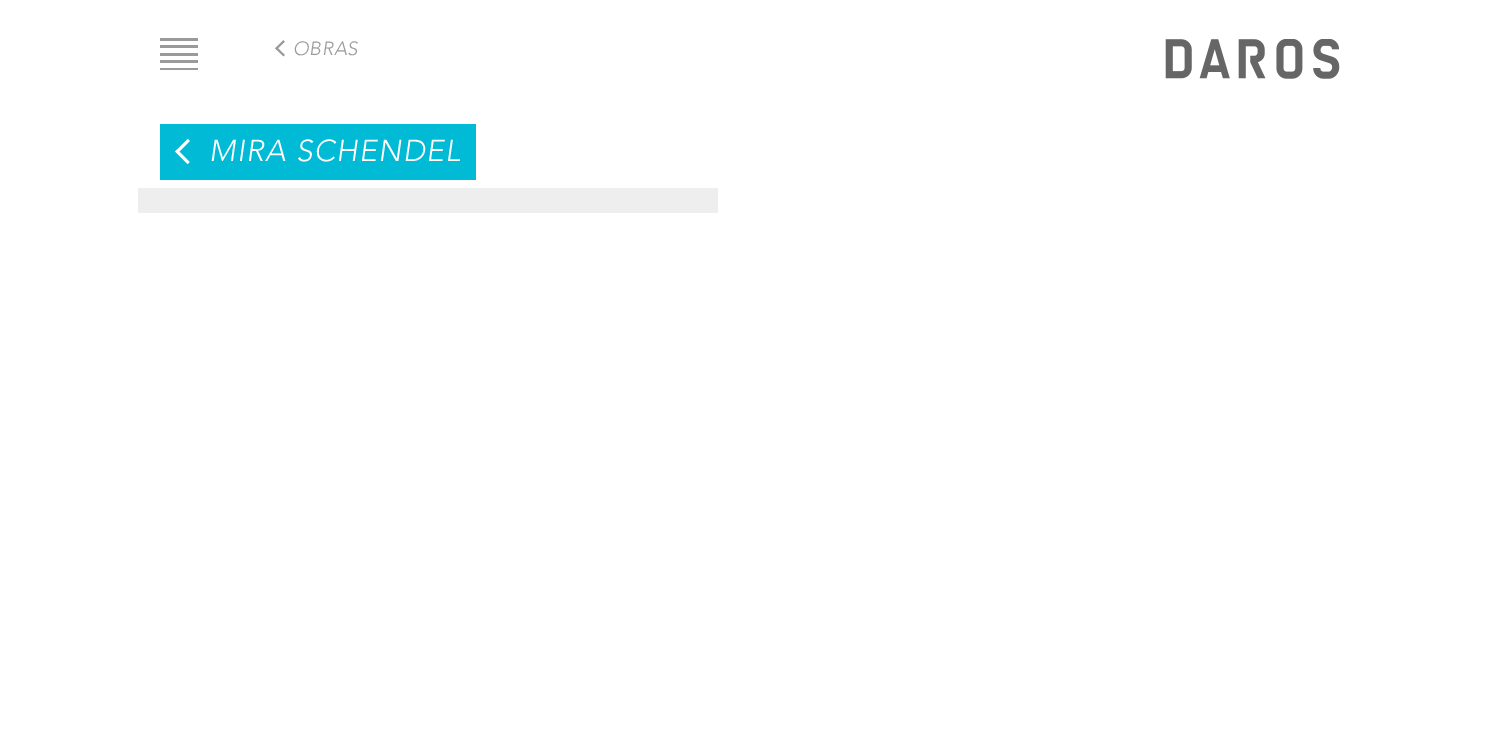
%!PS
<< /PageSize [1498 749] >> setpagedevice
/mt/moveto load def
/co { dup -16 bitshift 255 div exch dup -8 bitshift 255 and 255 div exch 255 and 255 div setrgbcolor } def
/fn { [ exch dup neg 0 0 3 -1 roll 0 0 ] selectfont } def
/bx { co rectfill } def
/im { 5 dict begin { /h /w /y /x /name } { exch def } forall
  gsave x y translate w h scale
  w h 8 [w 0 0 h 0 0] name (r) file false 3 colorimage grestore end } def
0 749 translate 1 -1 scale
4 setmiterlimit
0 0 1498 749 16#FFFFFF bx
160 38 38 3 16#9A9A9A bx
160 45 38 3 16#9A9A9A bx
160 53 38 3 16#9A9A9A bx
160 60 38 3 16#9A9A9A bx
160 68 38 2 16#9A9A9A bx
(media/1.raw) 275 40 10 17 im
(media/2.raw) 1165 39 175 40 im
160 124 316 56 16#00BAD6 bx
(media/3.raw) 175 138 15 27 im
138 188 580 25 16#EEEEEE bx
/Avenir-LightItalic 19 fn
16#9A9A9A co
293 55 mt .5 0 (OBRAS) ashow
/Avenir-LightItalic 30 fn
16#FFFFFF co
209 161 mt 1.25 0 (MIRA SCHENDEL) ashow
showpage
